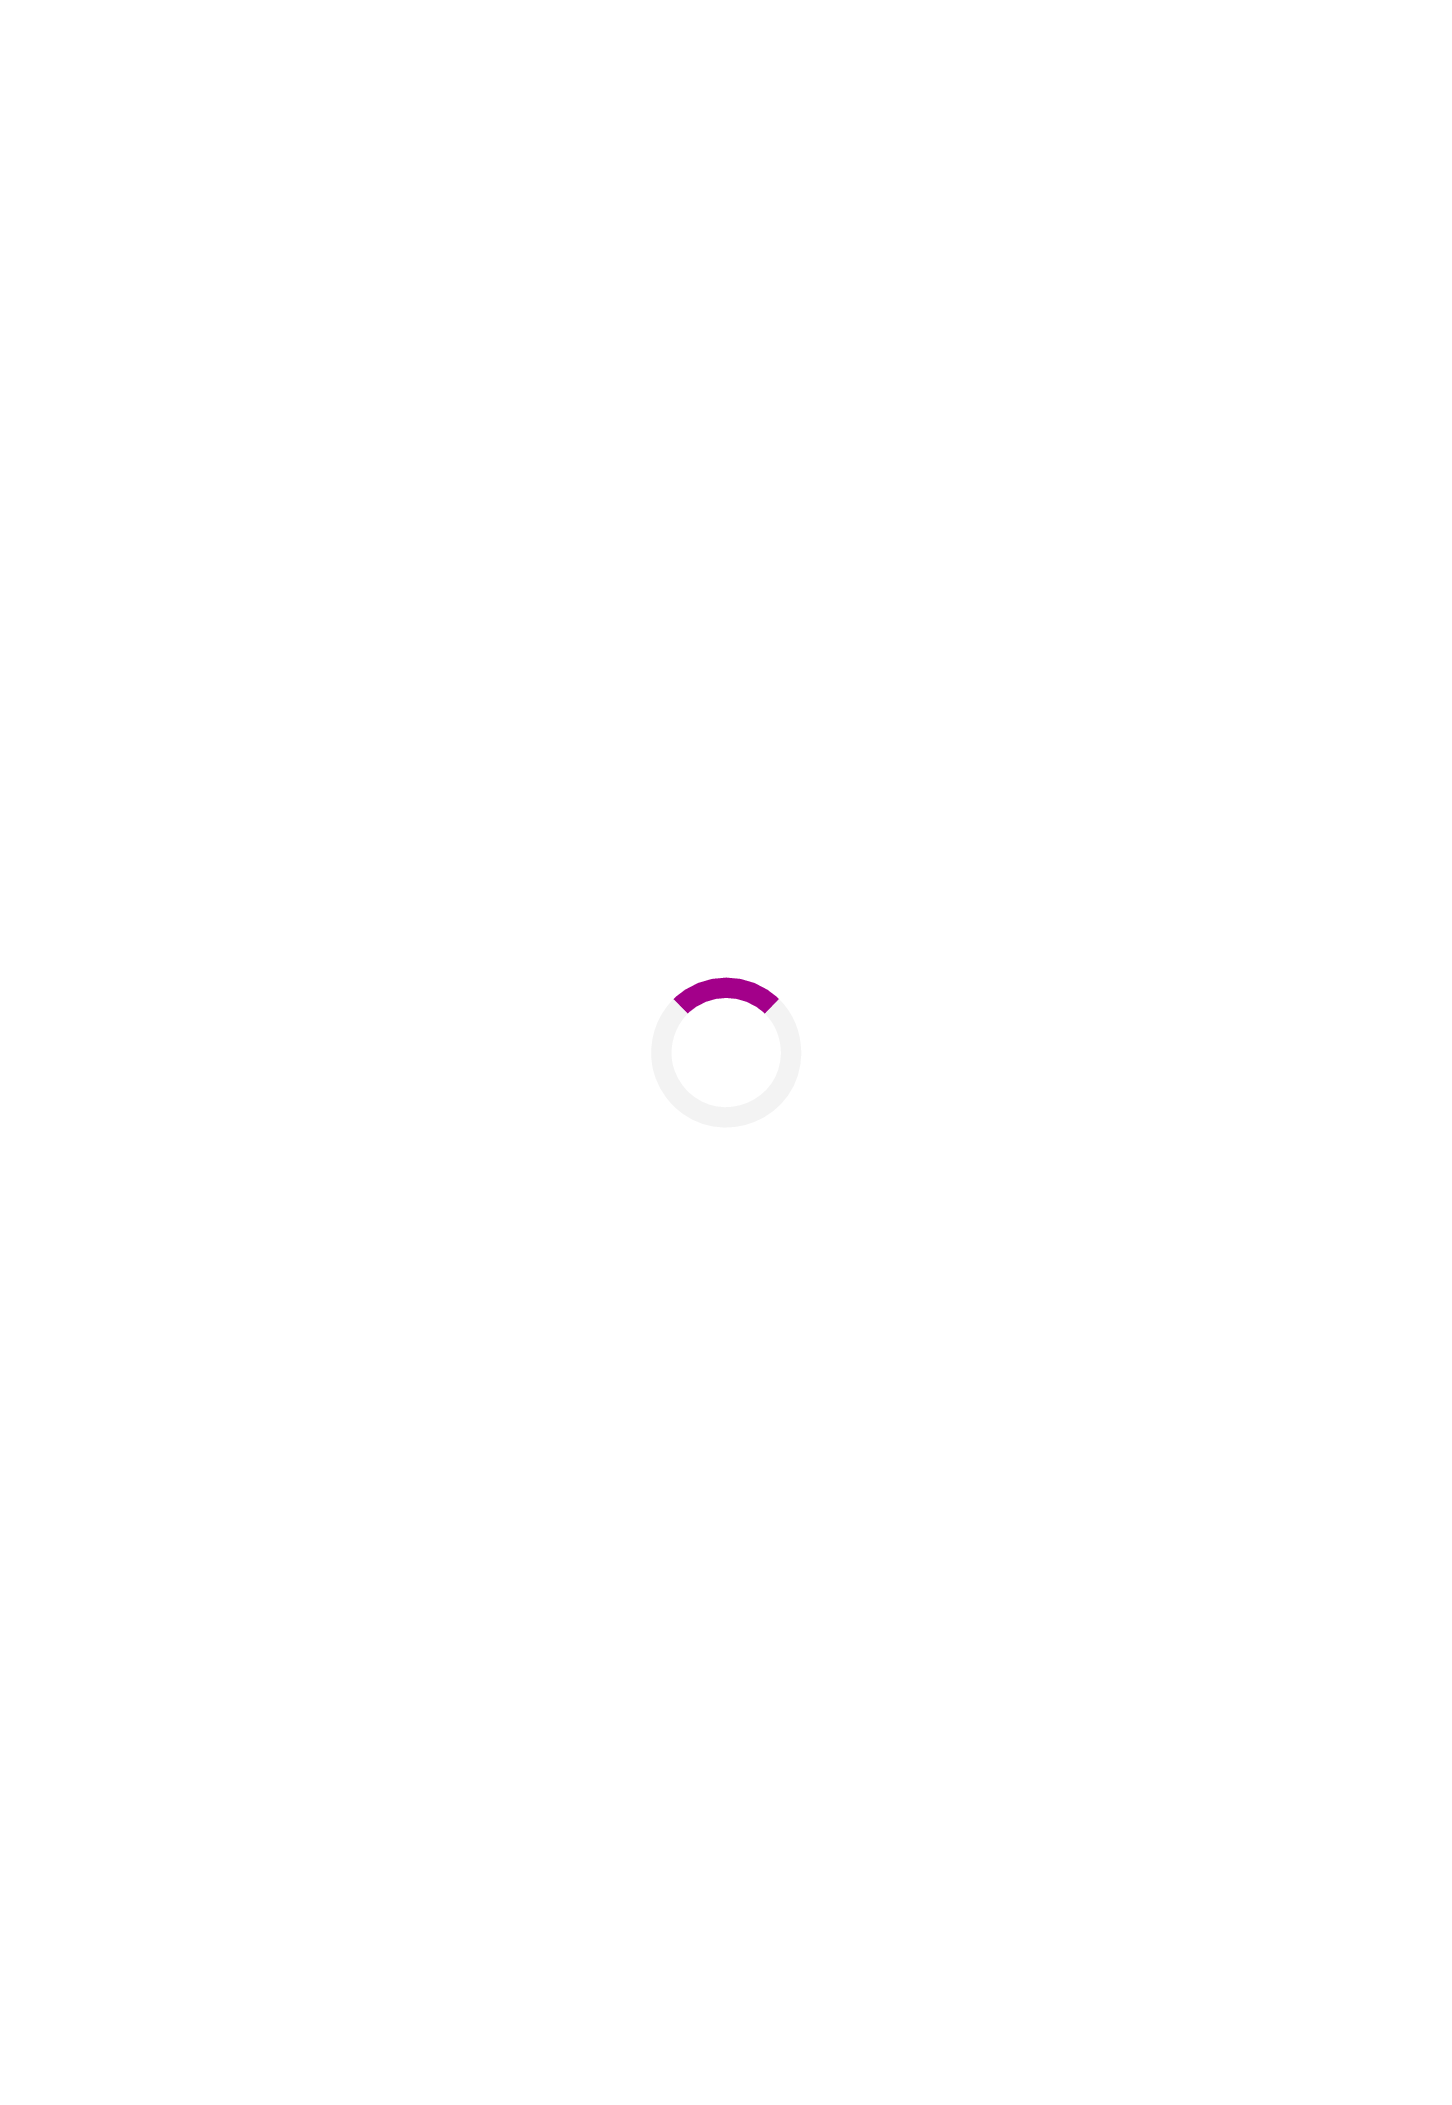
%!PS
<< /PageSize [1452 2105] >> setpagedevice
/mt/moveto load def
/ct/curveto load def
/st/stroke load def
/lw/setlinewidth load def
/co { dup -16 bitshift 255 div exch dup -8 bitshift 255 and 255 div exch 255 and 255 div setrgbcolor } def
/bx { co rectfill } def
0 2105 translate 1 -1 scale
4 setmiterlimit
0 0 1452 2105 16#FFFFFF bx
16#A3008A co
20 lw
680.5 1006.5 mt 705.5 981.5 747 981.5 772 1006.5 ct st
16#F3F3F3 co
772 1006.5 mt 784.5 1018.5 791 1035.5 791 1052.5 ct 791.5 1110 721 1139 680.5 1098.5 ct 671.5 1089.5 665 1078 662.5 1065 ct 658.5 1044 665 1022 680.5 1006.5 ct st
showpage
